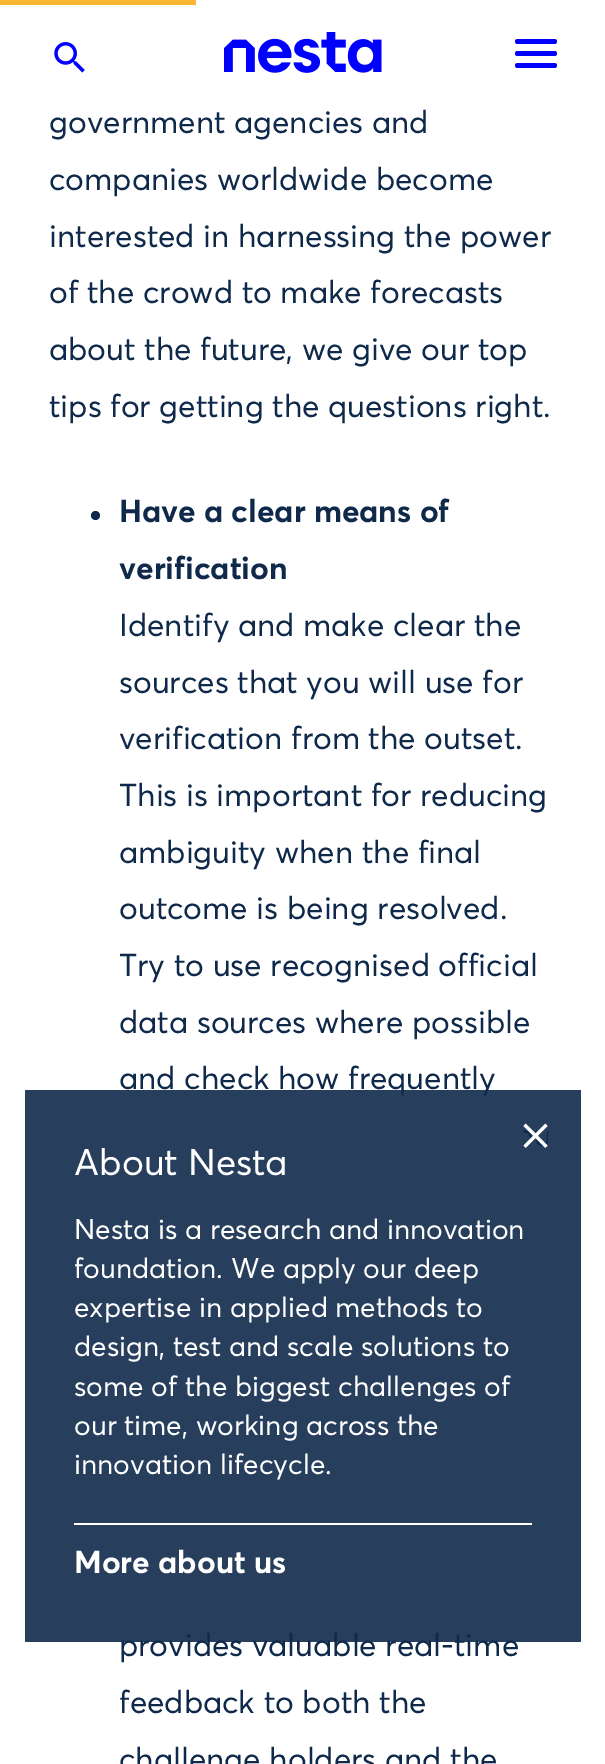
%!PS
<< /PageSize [605 1764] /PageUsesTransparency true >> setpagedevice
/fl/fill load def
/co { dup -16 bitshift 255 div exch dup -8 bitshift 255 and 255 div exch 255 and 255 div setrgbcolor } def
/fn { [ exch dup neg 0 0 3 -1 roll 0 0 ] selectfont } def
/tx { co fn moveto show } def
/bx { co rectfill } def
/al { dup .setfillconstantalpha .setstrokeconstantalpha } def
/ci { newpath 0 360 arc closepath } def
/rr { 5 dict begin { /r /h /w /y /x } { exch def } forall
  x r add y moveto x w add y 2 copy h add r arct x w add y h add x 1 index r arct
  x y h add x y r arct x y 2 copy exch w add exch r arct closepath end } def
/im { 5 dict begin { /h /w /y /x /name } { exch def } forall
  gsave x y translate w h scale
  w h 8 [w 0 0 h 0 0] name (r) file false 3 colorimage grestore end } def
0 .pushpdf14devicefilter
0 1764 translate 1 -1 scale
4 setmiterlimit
0 0 605 1764 16#FFFFFF bx
0 0 196 5 16#FDB633 bx
(media/1.raw) 54 42 31 31 im
(media/2.raw) 224 32 158 41 im
16#0000FF co
515 39 42 5 2.5 rr fl
515 51 42 5 2.5 rr fl
515 63 42 5 2.5 rr fl
16#0F294A co
95.5 515.5 4.5 ci fl
(government agencies and) 49 133 /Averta-Regular 31.5 16#0F294A tx
(companies worldwide become) 49 190 /Averta-Regular 31.5 16#0F294A tx
(interested in harnessing the power) 49 247 /Averta-Regular 31.5 16#0F294A tx
(of the crowd to make forecasts) 49 303 /Averta-Regular 31.5 16#0F294A tx
(about the future, we give our top) 49 360 /Averta-Regular 31.5 16#0F294A tx
(tips for getting the questions right.) 49 417 /Averta-Regular 31.5 16#0F294A tx
(Have a clear means of) 119 522 /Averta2-Regular 31.5 16#0F294A tx
(verification) 119 579 /Averta2-Regular 31.5 16#0F294A tx
(Identify and make clear the) 119 636 /Averta-Regular 31.5 16#0F294A tx
(sources that you will use for) 119 693 /Averta-Regular 31.5 16#0F294A tx
(verification from the outset.) 119 749 /Averta-Regular 31.5 16#0F294A tx
(This is important for reducing) 119 806 /Averta-Regular 31.5 16#0F294A tx
(ambiguity when the final) 119 863 /Averta-Regular 31.5 16#0F294A tx
(outcome is being resolved.) 119 919 /Averta-Regular 31.5 16#0F294A tx
(Try to use recognised official) 119 976 /Averta-Regular 31.5 16#0F294A tx
(data sources where possible) 119 1033 /Averta-Regular 31.5 16#0F294A tx
(and check how frequently) 119 1089 /Averta-Regular 31.5 16#0F294A tx
(provides valuable real-time) 119 1656 /Averta-Regular 31.5 16#0F294A tx
(feedback to both the) 119 1713 /Averta-Regular 31.5 16#0F294A tx
(challenge holders and the) 119 1770 /Averta-Regular 31.5 16#0F294A tx
0.9 al
25 1090 556 552 16#0F294A bx
1 al
(media/3.raw) 523 1123 25 25 im
(About Nesta) 74 1175 /Averta-Regular 36.75 16#FFFFFF tx
(Nesta is a research and innovation) 74 1239 /Averta-Regular 28 16#FFFFFF tx
(foundation. We apply our deep) 74 1278 /Averta-Regular 28 16#FFFFFF tx
(expertise in applied methods to) 74 1317 /Averta-Regular 28 16#FFFFFF tx
(design, test and scale solutions to) 74 1356 /Averta-Regular 28 16#FFFFFF tx
(some of the biggest challenges of) 74 1396 /Averta-Regular 28 16#FFFFFF tx
(our time, working across the) 74 1435 /Averta-Regular 28 16#FFFFFF tx
(innovation lifecycle.) 74 1474 /Averta-Regular 28 16#FFFFFF tx
74 1523 458 2 16#FFFFFF bx
(More about us) 74 1573 /Averta2-Regular 31.5 16#FFFFFF tx
.poppdf14devicefilter showpage
